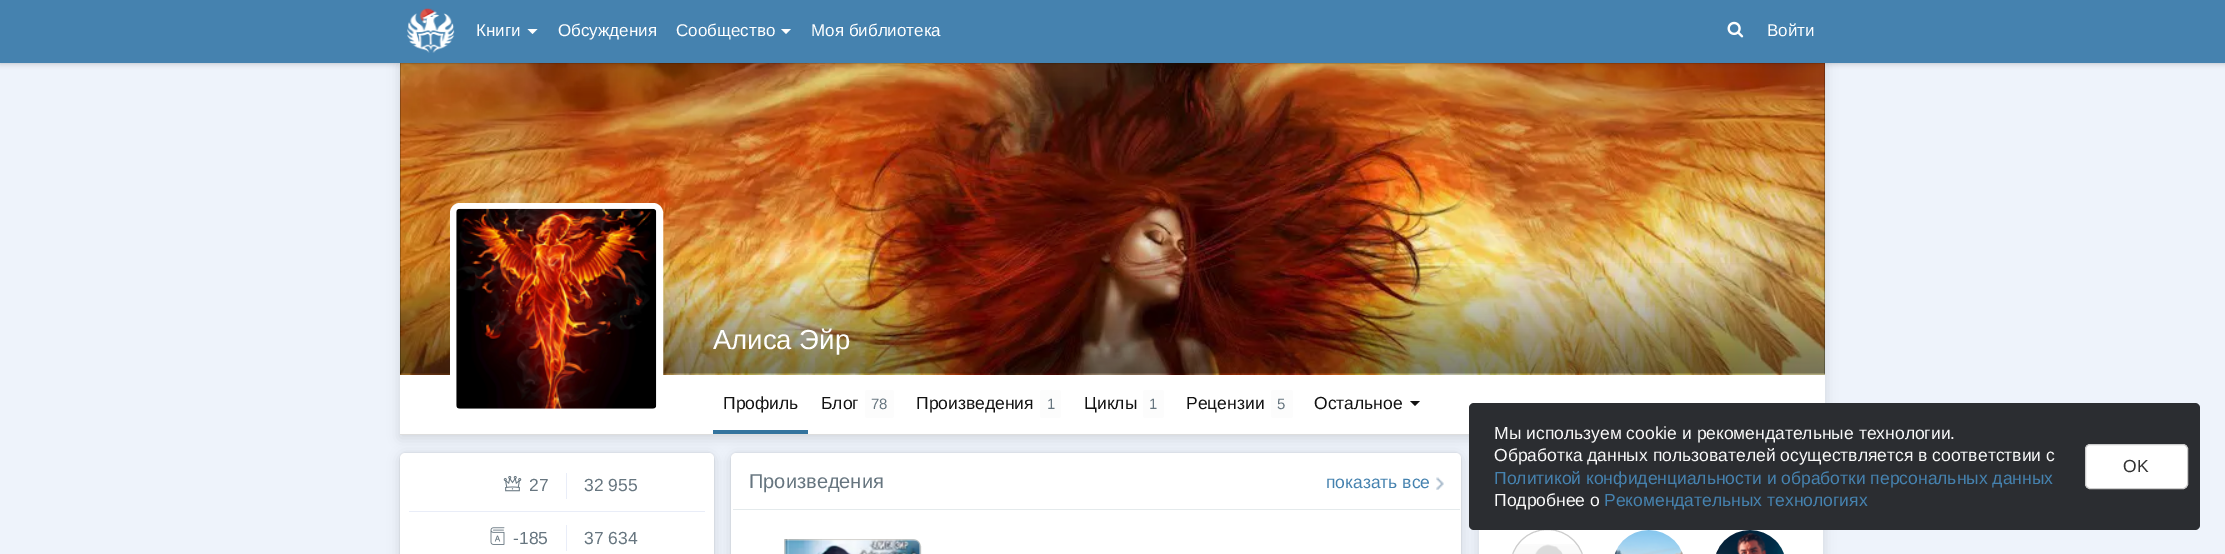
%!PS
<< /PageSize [2225 554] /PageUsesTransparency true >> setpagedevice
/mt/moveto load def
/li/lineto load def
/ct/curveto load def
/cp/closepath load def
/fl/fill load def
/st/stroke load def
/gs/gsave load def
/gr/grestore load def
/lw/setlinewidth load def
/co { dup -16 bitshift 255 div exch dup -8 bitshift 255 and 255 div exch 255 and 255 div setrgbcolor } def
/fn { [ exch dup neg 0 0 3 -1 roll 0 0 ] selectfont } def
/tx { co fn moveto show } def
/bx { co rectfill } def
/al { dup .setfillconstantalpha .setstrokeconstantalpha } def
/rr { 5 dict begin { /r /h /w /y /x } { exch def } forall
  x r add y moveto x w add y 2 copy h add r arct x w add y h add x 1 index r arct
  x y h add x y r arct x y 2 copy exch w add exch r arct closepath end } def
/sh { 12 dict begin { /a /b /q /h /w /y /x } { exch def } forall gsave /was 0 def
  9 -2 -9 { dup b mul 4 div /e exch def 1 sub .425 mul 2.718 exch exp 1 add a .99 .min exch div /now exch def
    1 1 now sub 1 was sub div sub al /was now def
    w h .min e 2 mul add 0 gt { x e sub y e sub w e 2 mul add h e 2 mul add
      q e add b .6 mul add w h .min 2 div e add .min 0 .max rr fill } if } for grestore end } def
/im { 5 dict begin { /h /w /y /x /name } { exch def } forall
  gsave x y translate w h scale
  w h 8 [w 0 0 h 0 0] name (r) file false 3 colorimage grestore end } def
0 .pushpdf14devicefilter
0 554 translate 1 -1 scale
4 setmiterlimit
0 0 2225 554 16#EEF3FB bx
16#000000 co
400 65 1425 373 0 6 .12 sh
(media/4.raw) 400 63 1425 312 im
0.1 al
400 62 mt 1825 62 li 1824 64 li 401 64 li cp fl
1 al
(media/3.raw) 400 263 1425 111 im
0.25 al
1825 62 mt 1825 375 li 1824 374 li 1824 64 li cp fl
1825 375 mt 400 375 li 401 374 li 1824 374 li cp fl
400 375 mt 400 62 li 401 64 li 401 374 li cp fl
1 al
0 0 2225 63 0 3 .25 sh
0 0 2225 63 16#4582AF bx
(media/1.raw) 407 8 48 45 im
16#FFFFFF co
527.5 29 mt 537.5 29 li 532.5 34 li cp fl
781 29 mt 791 29 li 786 34 li cp fl
(media/2.raw) 1727 21 17 17 im
400 434 1069 1 16#DDDDDD bx
400 375 1425 59 16#FFFFFF bx
453 206 207 206 7 rr gs fl gr
6 lw
st
(media/5.raw) 456 208 201 201 im
713 430 95 4 16#34749E bx
16#FCFCFC co
865 390 29 28 2.5 rr fl
1040 390 21 28 2.5 rr fl
1143 390 21 28 2.5 rr fl
1271 390 22 28 2.5 rr fl
16#121212 co
1410 401 mt 1420 401 li 1415 406 li cp fl
16#000000 co
400 455 314 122 5 6 .12 sh
400 453 314 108 5 .5 .12 sh
16#FFFFFF co
400 453 314 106 5 rr fl
409 511 296 1 16#E9EDF8 bx
(media/6.raw) 503 476 19 16 im
566 473 1 26 16#E9EDF8 bx
(media/7.raw) 490 527 15 18 im
566 525 1 26 16#E9EDF8 bx
16#000000 co
731 455 730 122 5 6 .12 sh
731 453 730 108 5 .5 .12 sh
16#FFFFFF co
731 453 730 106 5 rr fl
733 509 727 1 16#E4EAEC bx
(media/8.raw) 1436 477 8 13 im
16#F6F4EE co
784 539 mt 913 539 li 917.5 539 921 542.5 921 547 ct 921 554 li 921 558.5 917.5 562 913 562 ct 784 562 li cp fl
0.15 al
16#000000 co
1 lw
784.5 539.5 mt 913 539.5 li 917 539.5 920.5 543 920.5 547 ct 920.5 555 li 920.5 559 917 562.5 913 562.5 ct 784.5 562.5 li cp st
1 al
(media/9.raw) 784 539 137 15 im
(media/10.raw) 784 539 38 15 im
1479 455 344 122 5 6 .12 sh
1479 530 344 24 16#FFFFFF bx
(media/11.raw) 1512 544 71 10 im
16#CCCCCC co
1510.5 529.5 74 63 37 rr st
(media/12.raw) 1614 530 69 24 im
(media/13.raw) 1716 530 68 24 im
16#2B2D31 co
1469 403 731 127 5 rr fl
16#FFFFFF co
2085.5 444.5 102 44 4.5 rr gs fl gr
16#CCCCCC co
st
(Книги) 476 36 /LiberationSans-Regular 17 16#FFFFFF tx
(Обсуждения) 558 36 /LiberationSans-Regular 17 16#FFFFFF tx
(Сообщество) 676 36 /LiberationSans-Regular 17 16#FFFFFF tx
(Моя библиотека) 811 36 /LiberationSans-Regular 17 16#FFFFFF tx
(Войти) 1767 36 /LiberationSans-Regular 17 16#FFFFFF tx
(Алиса Эйр) 713 349 /LiberationSans-Regular 27.5 16#FFFFFF tx
(Профиль) 723 409 /LiberationSans-Regular 17.5 16#121212 tx
(Блог) 821 409 /LiberationSans-Regular 17.5 16#121212 tx
(78) 871 409 /LiberationSans-Regular 15 16#66757F tx
(Произведения) 916 409 /LiberationSans-Regular 17.5 16#121212 tx
(1) 1047 409 /LiberationSans-Regular 15 16#66757F tx
(Циклы) 1084 409 /LiberationSans-Regular 17.5 16#121212 tx
(1) 1149 409 /LiberationSans-Regular 15 16#66757F tx
(Рецензии) 1186 409 /LiberationSans-Regular 17.5 16#121212 tx
(5) 1277 409 /LiberationSans-Regular 15 16#66757F tx
(Остальное) 1314 409 /LiberationSans-Regular 17.5 16#121212 tx
(27) 529 491 /LiberationSans-Regular 17.5 16#66757F tx
(32 955) 584 491 /LiberationSans-Regular 17.5 16#66757F tx
(-185) 513 544 /LiberationSans-Regular 17.5 16#66757F tx
(37 634) 584 544 /LiberationSans-Regular 17.5 16#66757F tx
(Произведения) 749 488 /LiberationSans-Regular 20 16#66757F tx
(показать все) 1326 488 /LiberationSans-Regular 17.5 16#4582AF tx
(Мы используем cookie и рекомендательные технологии.) 1494 439 /LiberationSans-Regular 17.5 16#F9F9F9 tx
(Обработка данных пользователей осуществляется в соответствии с) 1494 461 /LiberationSans-Regular 17.5 16#F9F9F9 tx
(Политикой конфиденциальности и обработки персональных данных) 1494 484 /LiberationSans-Regular 17.5 16#4582AF tx
(Подробнее о) 1494 506 /LiberationSans-Regular 17.5 16#F9F9F9 tx
(Рекомендательных технологиях) 1604 506 /LiberationSans-Regular 17.5 16#4582AF tx
(OK) 2123 472 /LiberationSans-Regular 17.5 16#333333 tx
.poppdf14devicefilter showpage
